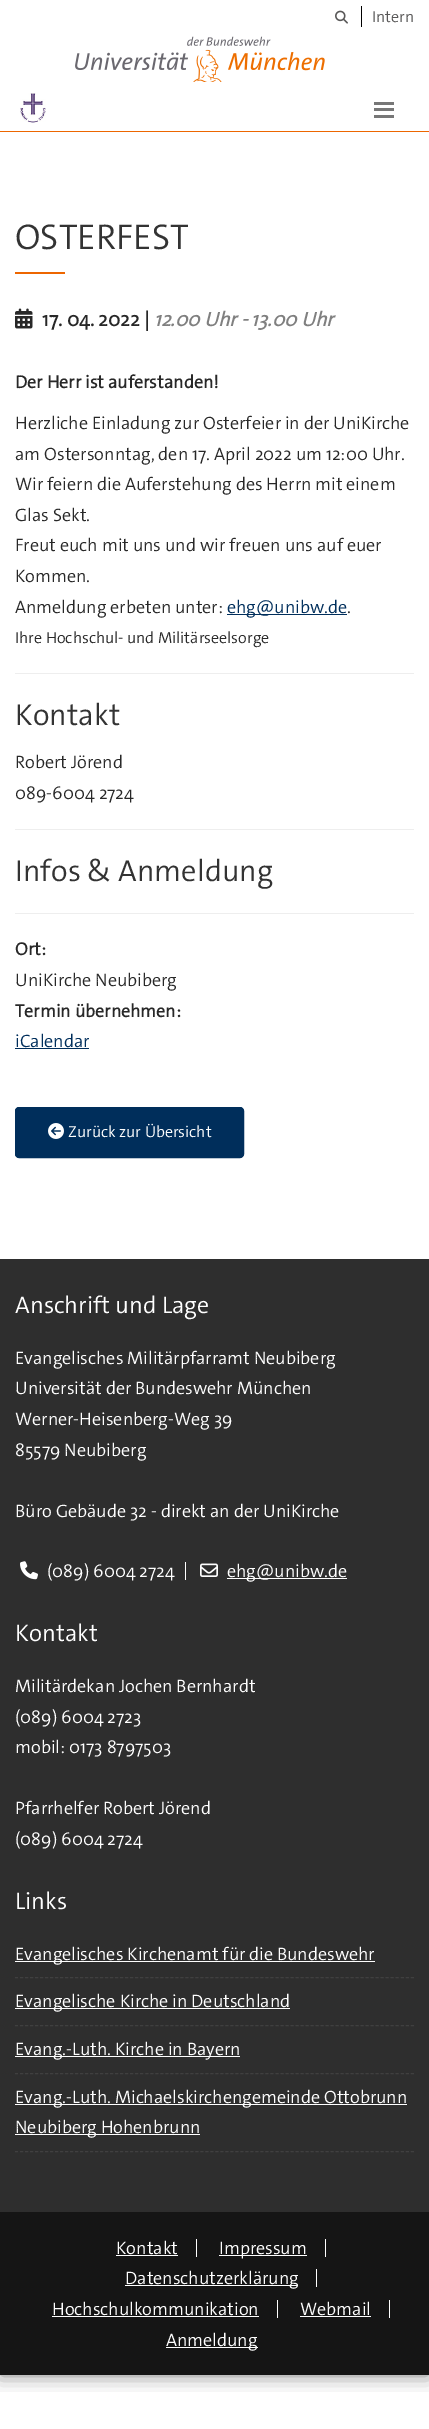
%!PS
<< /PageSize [429 2429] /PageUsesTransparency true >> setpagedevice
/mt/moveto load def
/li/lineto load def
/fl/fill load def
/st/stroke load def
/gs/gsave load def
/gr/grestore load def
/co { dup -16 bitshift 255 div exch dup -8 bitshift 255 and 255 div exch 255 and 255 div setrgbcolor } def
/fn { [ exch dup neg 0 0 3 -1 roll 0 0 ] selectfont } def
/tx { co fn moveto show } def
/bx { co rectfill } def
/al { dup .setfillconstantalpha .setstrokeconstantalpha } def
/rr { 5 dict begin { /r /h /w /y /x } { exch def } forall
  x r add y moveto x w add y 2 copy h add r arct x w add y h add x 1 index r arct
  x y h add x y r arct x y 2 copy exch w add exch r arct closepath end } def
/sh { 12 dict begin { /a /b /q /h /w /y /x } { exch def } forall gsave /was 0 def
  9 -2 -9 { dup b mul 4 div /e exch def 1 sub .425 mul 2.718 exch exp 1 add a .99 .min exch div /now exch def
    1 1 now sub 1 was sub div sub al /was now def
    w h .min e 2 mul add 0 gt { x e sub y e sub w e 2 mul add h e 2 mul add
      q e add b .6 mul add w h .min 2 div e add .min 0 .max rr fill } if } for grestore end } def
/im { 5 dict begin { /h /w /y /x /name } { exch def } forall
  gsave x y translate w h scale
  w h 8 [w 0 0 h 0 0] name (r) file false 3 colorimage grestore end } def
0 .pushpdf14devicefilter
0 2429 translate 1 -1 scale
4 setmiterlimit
0 0 429 2429 16#FFFFFF bx
gs
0 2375 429 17 rectclip
16#000000 co
0 0 429 2375 0 10 .5 sh
gr
0 131 429 1 16#ED6600 bx
(media/1.raw) 335 10 13 14 im
361 6 1 21 16#000000 bx
(media/2.raw) 193 49 29 33 im
(media/3.raw) 75 36 250 35 im
(media/4.raw) 20 93 26 30 im
374 102 20 3 16#777777 bx
374 108 20 3 16#777777 bx
374 115 20 3 16#777777 bx
15 272 50 2 16#ED6600 bx
(media/5.raw) 15 308 18 21 im
227 614 120 1 16#002E5B bx
15 673 399 1 16#EEEEEE bx
15 829 399 1 16#EEEEEE bx
15 913 399 1 16#EEEEEE bx
15 1048 74 1 16#002E5B bx
15.5 1107.5 228 50 3.5 rr gs fl gr
st
(media/6.raw) 48 1123 16 16 im
0 1259 429 953 16#2E2E2E bx
185 1562 1 18 16#FFFFFF bx
(media/7.raw) 20 1561 18 19 im
(media/8.raw) 200 1563 18 14 im
227 1578 120 1 16#FFFFFF bx
16#404040 co
[3 2.01] 0 setdash
15 1977.5 mt 414 1977.5 li st
15 1961 360 1 16#FFFFFF bx
16#404040 co
15 2025.5 mt 414 2025.5 li st
15 2008 275 1 16#FFFFFF bx
16#404040 co
15 2073.5 mt 414 2073.5 li st
15 2056 225 1 16#FFFFFF bx
16#404040 co
15 2151.5 mt 414 2151.5 li st
15 2104 392 1 16#FFFFFF bx
15 2134 185 1 16#FFFFFF bx
0 2212 429 163 16#151515 bx
196 2239 1 18 16#FFFFFF bx
116 2255 62 1 16#FFFFFF bx
325 2239 1 18 16#FFFFFF bx
219 2255 88 1 16#FFFFFF bx
316 2269 1 18 16#FFFFFF bx
125 2285 173 1 16#FFFFFF bx
277 2300 1 18 16#FFFFFF bx
52 2316 207 1 16#FFFFFF bx
389 2300 1 18 16#FFFFFF bx
300 2316 71 1 16#FFFFFF bx
166 2347 92 1 16#FFFFFF bx
(Intern) 372 22 /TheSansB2-Light 16 16#595858 tx
(OSTERFEST) 15 249 /TheSansB2-Light 36 16#333333 tx
(17. 04. 2022 |) 42 326 /TheSansB2-Bold 20 16#282828 tx
(12.00 Uhr - 13.00 Uhr) 154 326 /TheSansB2-BoldItalic 20 16#808080 tx
(Der Herr ist auferstanden!) 15 388 /TheSansB2-Bold 18 16#282828 tx
(Herzliche Einladung zur Osterfeier in der UniKirche) 15 429 /TheSansB2-Light 18 16#282828 tx
(am Ostersonntag, den 17. April 2022 um 12:00 Uhr.) 15 460 /TheSansB2-Light 18 16#282828 tx
(Wir feiern die Auferstehung des Herrn mit einem) 15 490 /TheSansB2-Light 18 16#282828 tx
(Glas Sekt.) 15 521 /TheSansB2-Light 18 16#282828 tx
(Freut euch mit uns und wir freuen uns auf euer) 15 551 /TheSansB2-Light 18 16#282828 tx
(Kommen.) 15 582 /TheSansB2-Light 18 16#282828 tx
(Anmeldung erbeten unter:) 15 613 /TheSansB2-Light 18 16#282828 tx
(ehg@unibw.de) 227 613 /TheSansB2-Light 18 16#002E5B tx
(.) 347 613 /TheSansB2-Light 18 16#282828 tx
(Ihre Hochschul- und Militärseelsorge) 15 643 /TheSansB2-Light 16 16#282828 tx
(Kontakt) 15 725 /TheSansB2-Light 30.5 16#333333 tx
(Robert Jörend) 15 768 /TheSansB2-Light 18 16#282828 tx
(089-6004 2724) 15 799 /TheSansB2-Light 18 16#282828 tx
(Infos & Anmeldung) 15 881 /TheSansB2-Light 30.5 16#333333 tx
(Ort:) 15 955 /TheSansB2-Bold 18 16#282828 tx
(UniKirche Neubiberg) 15 986 /TheSansB2-Light 18 16#282828 tx
(Termin übernehmen:) 15 1017 /TheSansB2-Bold 18 16#282828 tx
(iCalendar) 15 1047 /TheSansB2-Light 18 16#002E5B tx
(Zurück zur Übersicht) 68 1137 /TheSansB2-Light 16 16#FFFFFF tx
(Anschrift und Lage) 15 1313 /TheSansB2-Light 24 16#FFFFFF tx
(Evangelisches Militärpfarramt Neubiberg) 15 1364 /TheSansB2-Light 18 16#FFFFFF tx
(Universität der Bundeswehr München) 15 1394 /TheSansB2-Light 18 16#FFFFFF tx
(Werner-Heisenberg-Weg 39) 15 1425 /TheSansB2-Light 18 16#FFFFFF tx
(85579 Neubiberg) 15 1456 /TheSansB2-Light 18 16#FFFFFF tx
(Büro Gebäude 32 - direkt an der UniKirche) 15 1517 /TheSansB2-Light 18 16#FFFFFF tx
(\(089\) 6004 2724) 47 1577 /TheSansB2-Light 18 16#FFFFFF tx
(ehg@unibw.de) 227 1577 /TheSansB2-Light 18 16#FFFFFF tx
(Kontakt) 15 1641 /TheSansB2-Light 24 16#FFFFFF tx
(Militärdekan Jochen Bernhardt) 15 1692 /TheSansB2-Light 18 16#FFFFFF tx
(\(089\) 6004 2723) 15 1723 /TheSansB2-Light 18 16#FFFFFF tx
(mobil: 0173 8797503) 15 1753 /TheSansB2-Light 18 16#FFFFFF tx
(Pfarrhelfer Robert Jörend) 15 1814 /TheSansB2-Light 18 16#FFFFFF tx
(\(089\) 6004 2724) 15 1845 /TheSansB2-Light 18 16#FFFFFF tx
(Links) 15 1909 /TheSansB2-Light 24 16#FFFFFF tx
(Evangelisches Kirchenamt für die Bundeswehr) 15 1960 /TheSansB2-Light 18 16#FFFFFF tx
(Evangelische Kirche in Deutschland) 15 2007 /TheSansB2-Light 18 16#FFFFFF tx
(Evang.-Luth. Kirche in Bayern) 15 2055 /TheSansB2-Light 18 16#FFFFFF tx
(Evang.-Luth. Michaelskirchengemeinde Ottobrunn) 15 2103 /TheSansB2-Light 18 16#FFFFFF tx
(Neubiberg Hohenbrunn) 15 2133 /TheSansB2-Light 18 16#FFFFFF tx
(Kontakt) 116 2254 /TheSansB2-Light 18 16#FFFFFF tx
(Impressum) 219 2254 /TheSansB2-Light 18 16#FFFFFF tx
(Datenschutzerklärung) 125 2284 /TheSansB2-Light 18 16#FFFFFF tx
(Hochschulkommunikation) 52 2315 /TheSansB2-Light 18 16#FFFFFF tx
(Webmail) 300 2315 /TheSansB2-Light 18 16#FFFFFF tx
(Anmeldung) 166 2346 /TheSansB2-Light 18 16#FFFFFF tx
.poppdf14devicefilter showpage
